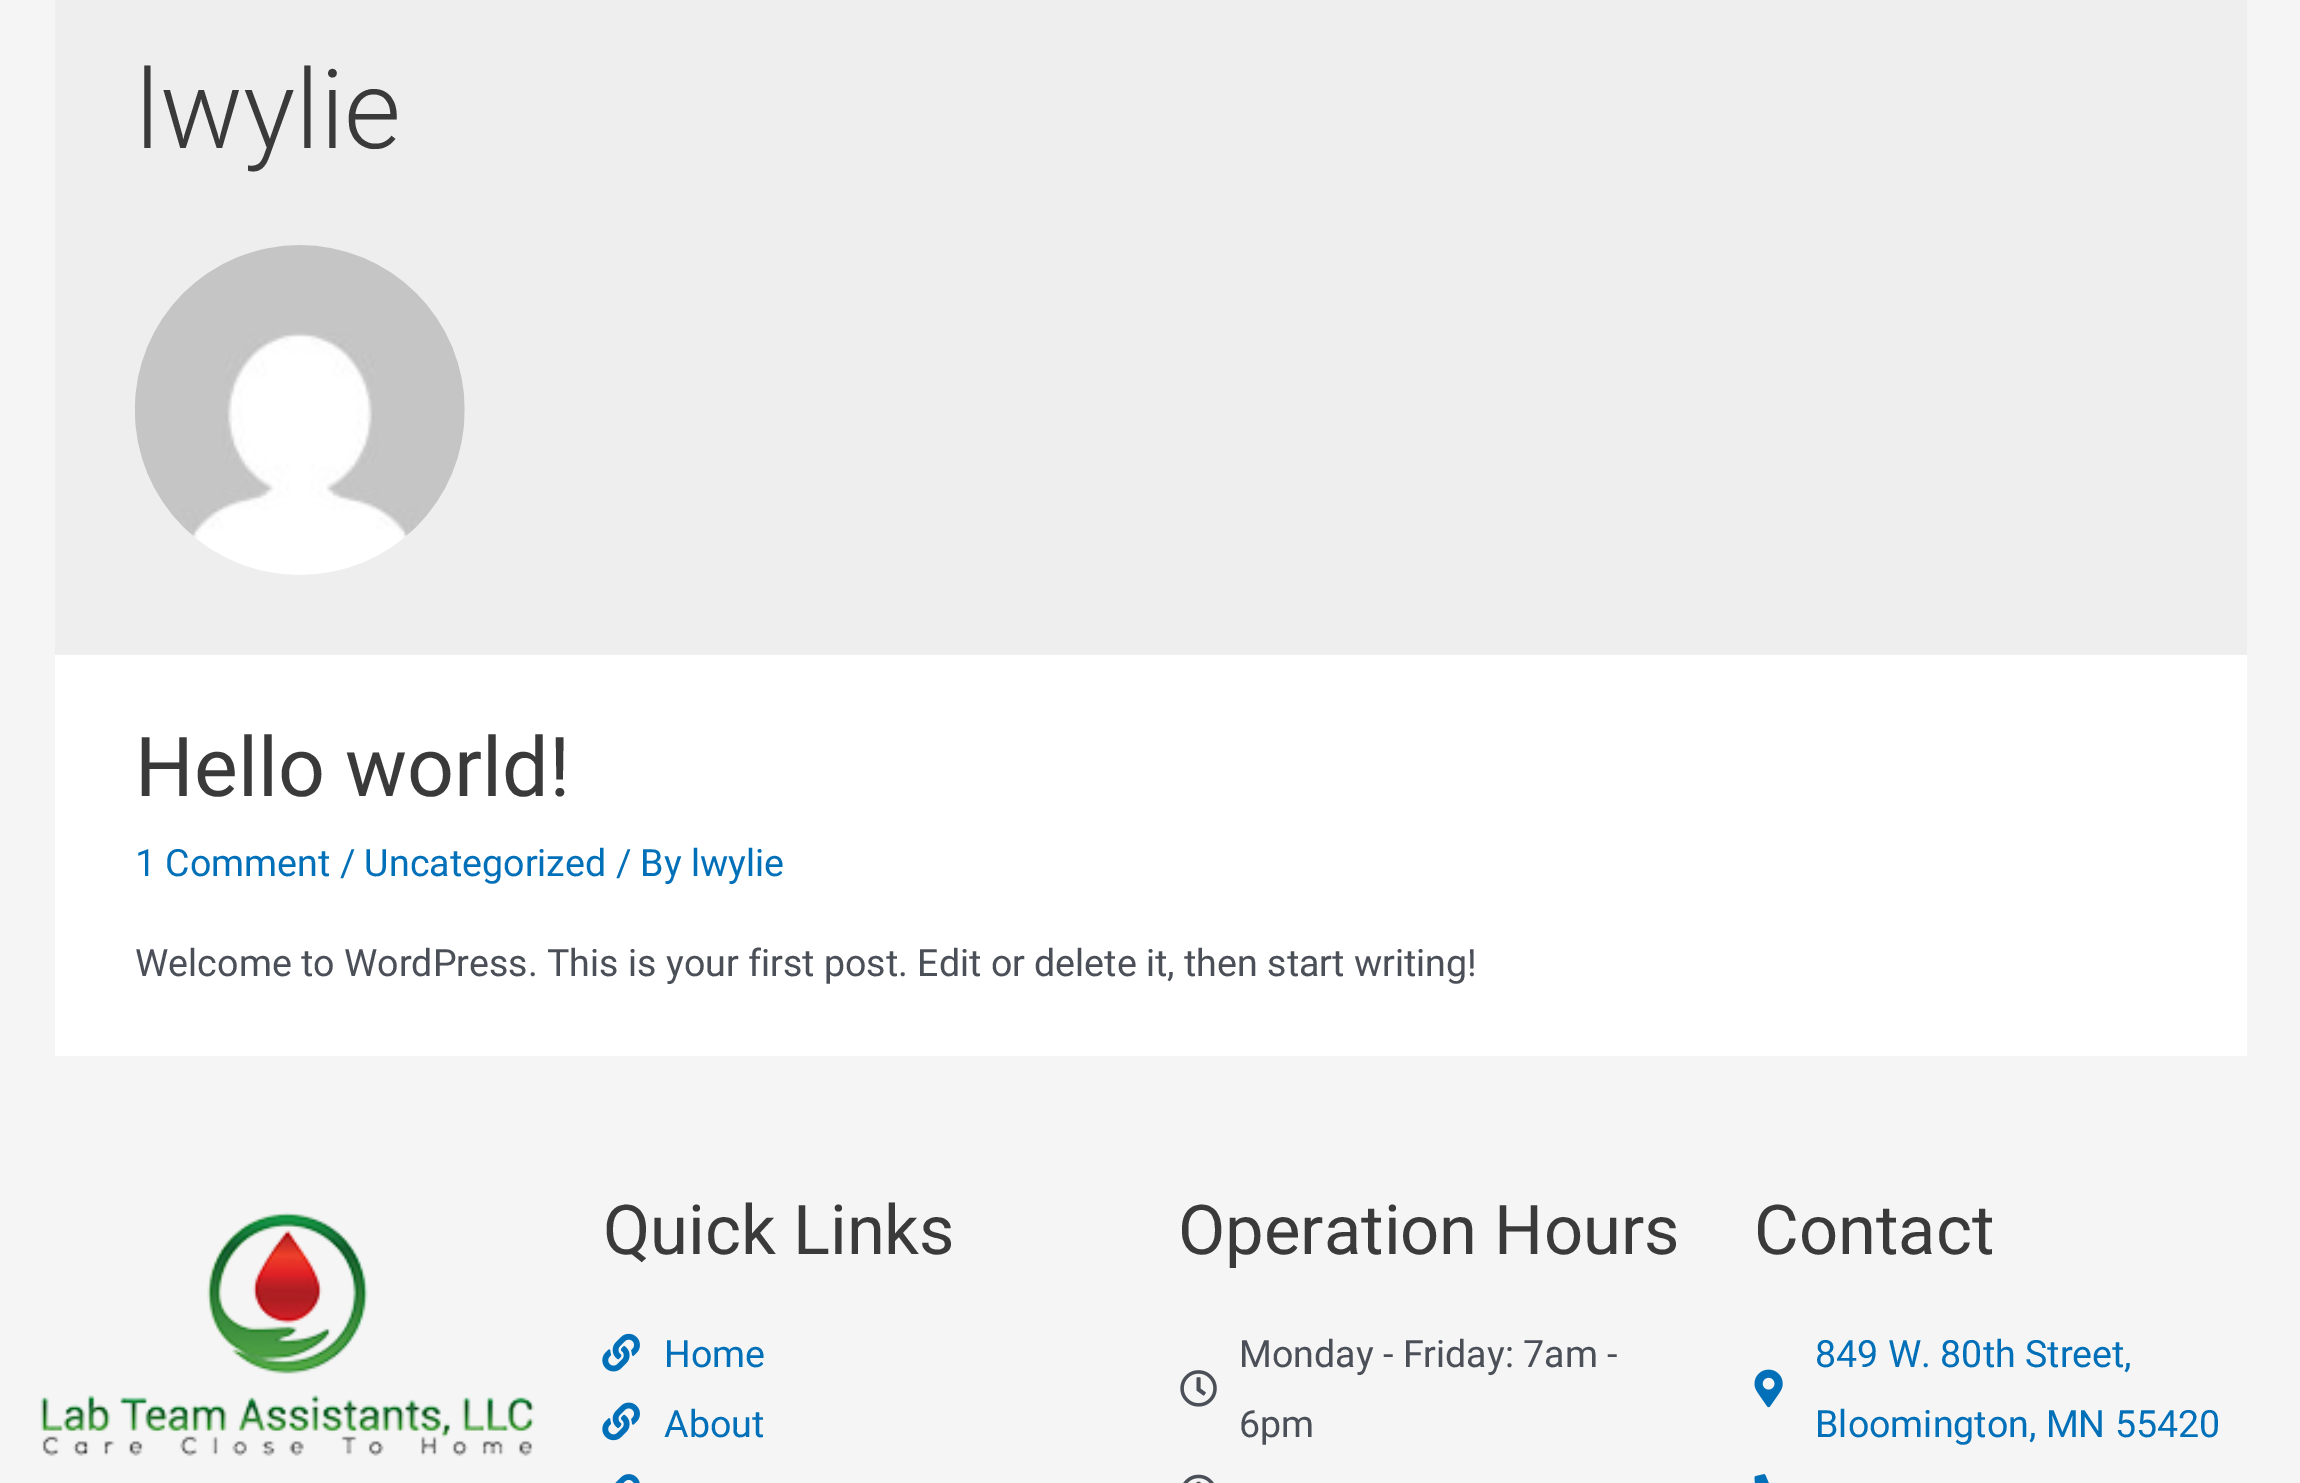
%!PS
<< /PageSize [2300 1483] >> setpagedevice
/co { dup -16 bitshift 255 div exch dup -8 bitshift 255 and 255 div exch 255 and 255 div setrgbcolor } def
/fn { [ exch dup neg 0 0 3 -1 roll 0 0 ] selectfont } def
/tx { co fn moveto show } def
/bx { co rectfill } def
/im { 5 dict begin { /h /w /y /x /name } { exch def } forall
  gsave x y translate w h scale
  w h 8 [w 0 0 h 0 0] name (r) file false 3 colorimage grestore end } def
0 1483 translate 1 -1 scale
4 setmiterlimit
0 0 2300 1483 16#F5F5F5 bx
55 0 2192 655 16#EEEEEE bx
(media/1.raw) 135 245 330 330 im
55 655 2192 401 16#FFFFFF bx
(media/2.raw) 40 1212 495 245 im
(media/3.raw) 602 1333 38 39 im
(media/4.raw) 602 1402 38 39 im
(media/5.raw) 615 1474 25 9 im
(media/6.raw) 1180 1370 37 37 im
(media/7.raw) 1183 1474 31 9 im
(media/8.raw) 1754 1369 29 39 im
(media/9.raw) 1754 1474 15 9 im
(lwylie) 135 148 /Roboto-Light 110 16#3A3A3A tx
(Hello world!) 135 796 /Roboto-Regular 82.5 16#3A3A3A tx
(1 Comment / Uncategorized / By lwylie) 135 876 /Roboto-Regular 37.6 16#0170B9 tx
(Welcome to WordPress. This is your first post. Edit or delete it, then start writing!) 135 976 /Roboto-Regular 37.6 16#4B4F58 tx
(Quick Links) 603 1254 /Roboto-Regular 68.75 16#3A3A3A tx
(Home) 664 1367 /Roboto-Regular 37.6 16#0170B9 tx
(About) 664 1437 /Roboto-Regular 37.6 16#0170B9 tx
(Operation Hours) 1178 1254 /Roboto-Regular 68.75 16#3A3A3A tx
(Monday - Friday: 7am -) 1239 1367 /Roboto-Regular 37.6 16#4B4F58 tx
(6pm) 1239 1437 /Roboto-Regular 37.6 16#4B4F58 tx
(Contact) 1754 1254 /Roboto-Regular 68.75 16#3A3A3A tx
(849 W. 80th Street,) 1815 1367 /Roboto-Regular 37.6 16#0170B9 tx
(Bloomington, MN 55420) 1815 1437 /Roboto-Regular 37.6 16#0170B9 tx
showpage
